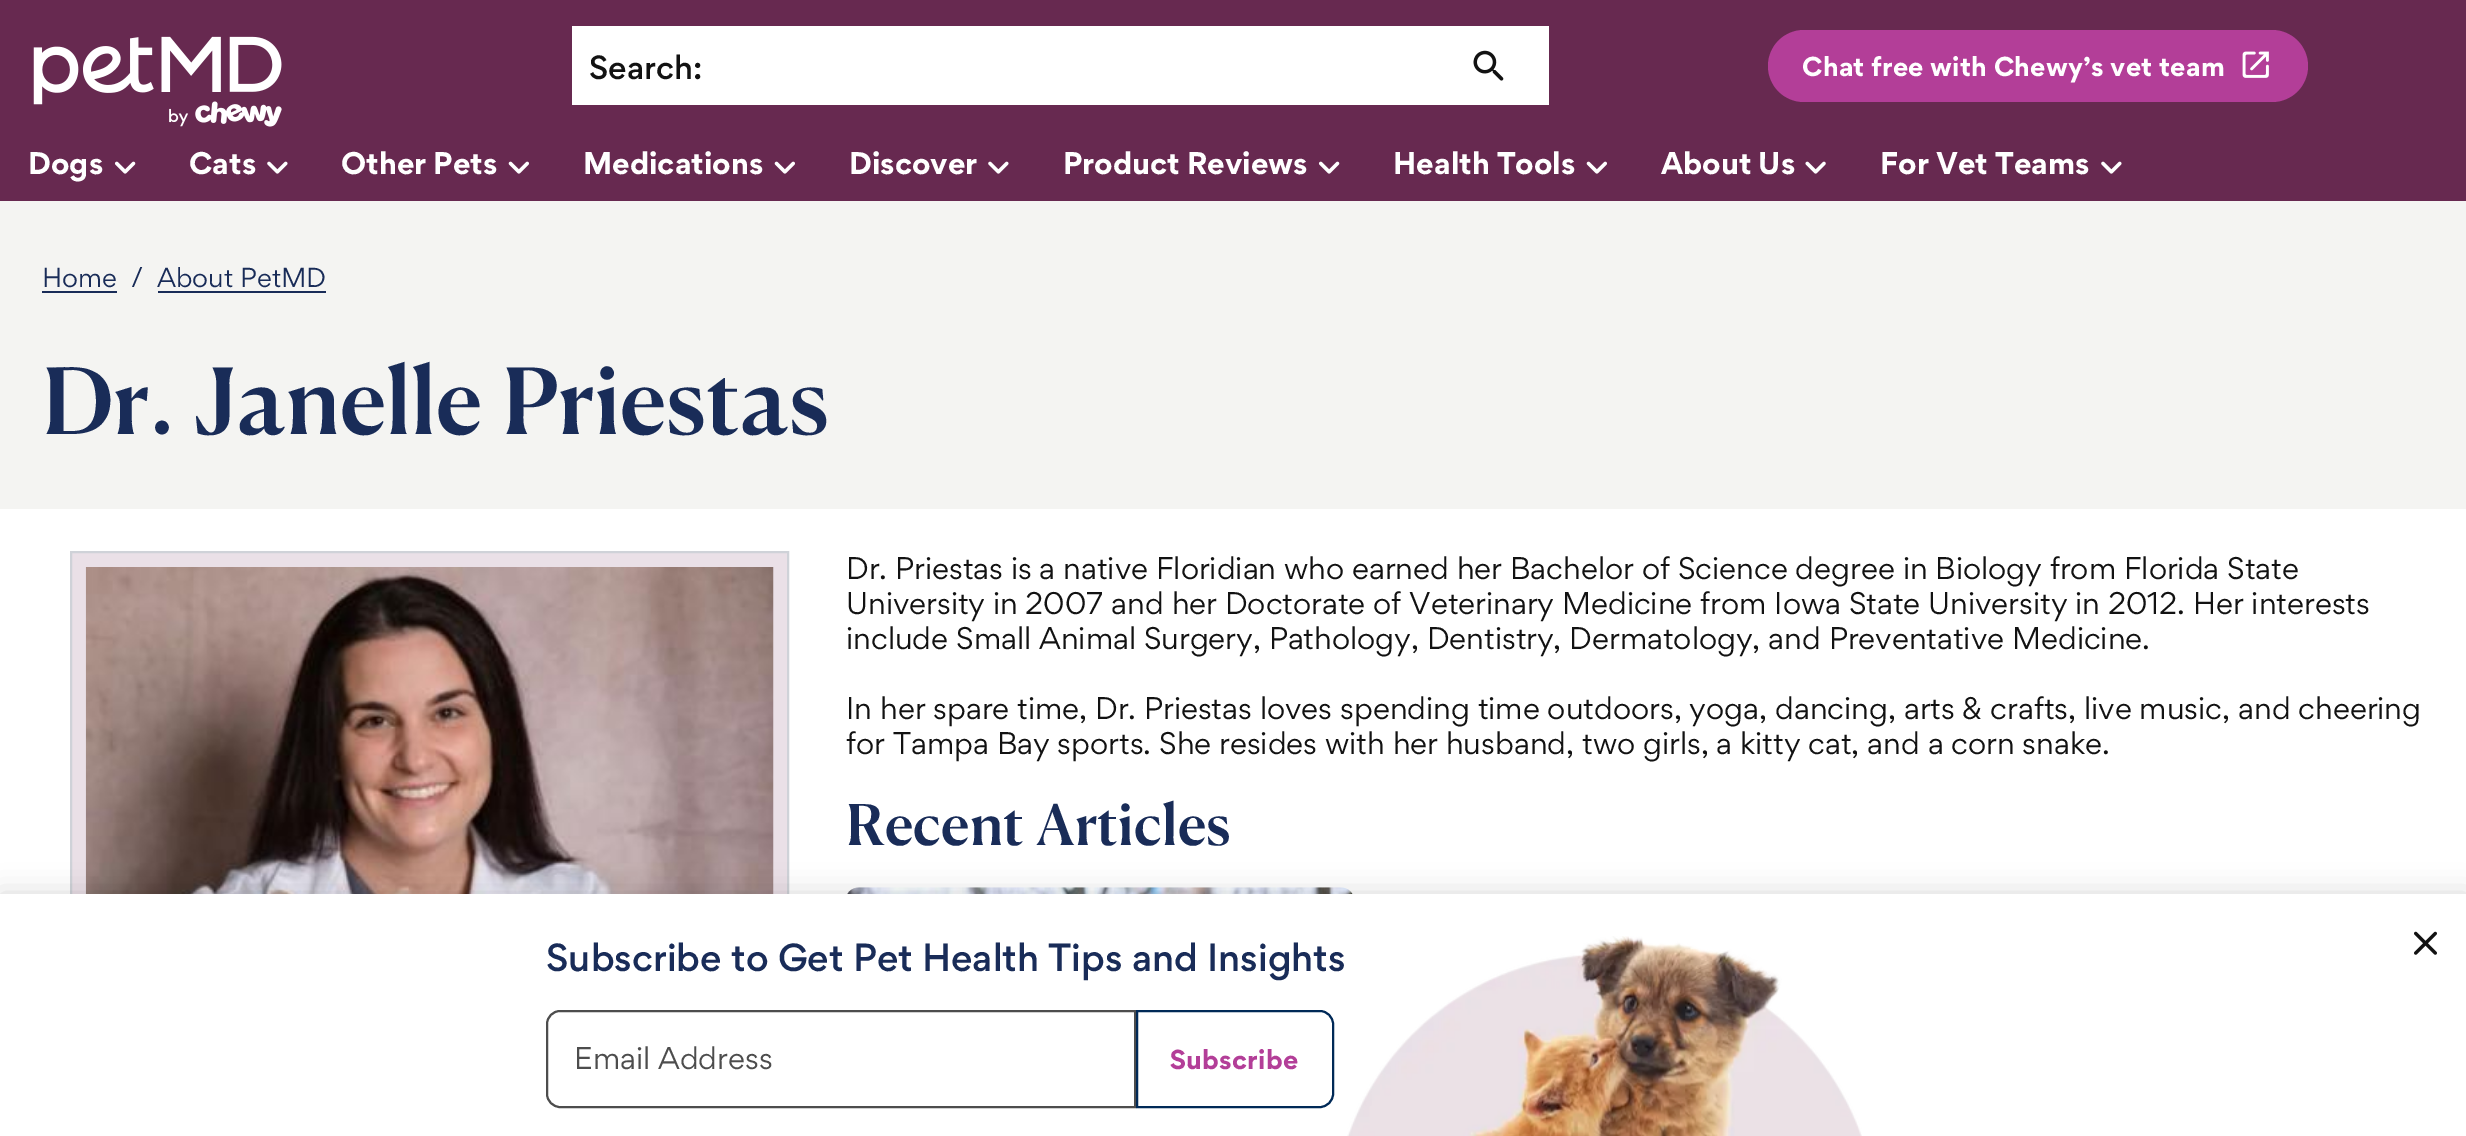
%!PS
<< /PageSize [2466 1136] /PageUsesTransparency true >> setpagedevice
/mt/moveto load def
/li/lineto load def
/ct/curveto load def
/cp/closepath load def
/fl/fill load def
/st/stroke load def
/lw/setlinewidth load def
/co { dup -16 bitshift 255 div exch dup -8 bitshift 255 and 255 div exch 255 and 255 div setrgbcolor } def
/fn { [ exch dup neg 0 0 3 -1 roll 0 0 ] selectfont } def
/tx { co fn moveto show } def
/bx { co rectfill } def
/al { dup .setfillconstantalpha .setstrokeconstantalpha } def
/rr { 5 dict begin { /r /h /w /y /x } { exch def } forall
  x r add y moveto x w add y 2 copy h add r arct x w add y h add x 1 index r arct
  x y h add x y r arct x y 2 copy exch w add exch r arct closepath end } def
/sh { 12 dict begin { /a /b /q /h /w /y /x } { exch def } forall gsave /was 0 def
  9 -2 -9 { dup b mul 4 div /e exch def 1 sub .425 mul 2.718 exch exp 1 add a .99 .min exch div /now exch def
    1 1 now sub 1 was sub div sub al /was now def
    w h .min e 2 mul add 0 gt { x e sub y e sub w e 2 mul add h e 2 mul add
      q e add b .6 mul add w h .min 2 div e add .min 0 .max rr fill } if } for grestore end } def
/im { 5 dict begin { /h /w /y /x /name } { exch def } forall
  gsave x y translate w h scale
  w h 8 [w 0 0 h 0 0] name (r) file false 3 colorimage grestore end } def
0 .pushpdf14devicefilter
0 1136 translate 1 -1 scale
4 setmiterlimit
0 0 2466 1136 16#FFFFFF bx
0 0 2466 201 16#672950 bx
(media/1.raw) 33 36 249 91 im
572 26 977 79 16#FFFFFF bx
(media/2.raw) 1473 50 31 31 im
16#B33E98 co
1768 30 540 72 36 rr fl
(media/3.raw) 2242 51 27 27 im
(media/4.raw) 114 161 22 13 im
(media/5.raw) 267 161 21 13 im
(media/6.raw) 508 161 21 13 im
(media/6.raw) 774 161 21 13 im
(media/5.raw) 988 161 21 13 im
(media/4.raw) 1318 161 22 13 im
(media/6.raw) 1586 161 21 13 im
(media/7.raw) 1805 161 21 13 im
(media/5.raw) 2101 161 21 13 im
0 201 2466 308 16#F4F4F2 bx
42 291 75 2 16#192C58 bx
158 291 168 2 16#192C58 bx
72 553 715 341 16#EAE0E7 bx
16#CFD2D8 co
2 lw
71 552 717 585 rectstroke
(media/8.raw) 85 567 689 327 im
(media/9.raw) 847 887 506 7 im
16#000000 co
0 894 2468 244 0 14 .15 sh
0 894 2466 242 16#FFFFFF bx
16#4D4D4D co
560 1011 mt 1135 1011 li 1135 1107 li 560 1107 li 553 1107 547 1101 547 1094 ct 547 1024 li 547 1017 553 1011 560 1011 ct cp st
16#002957 co
1137 1011 mt 1320 1011 li 1327 1011 1333 1017 1333 1024 ct 1333 1094 li 1333 1101 1327 1107 1320 1107 ct 1137 1107 li cp st
(media/10.raw) 1347 936 515 200 im
(media/11.raw) 2414 931 23 24 im
(Search:) 589 79 /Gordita-Medium 30 16#121212 tx
/Gordita-Bold 24.5 fn
16#FFFFFF co
1802 76 mt .25 0 (Chat free with Chewy) ashow
/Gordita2-Bold 24.5 fn
2083 76 mt .25 0 (’) ashow
/Gordita-Bold 24.5 fn
2091 76 mt .25 0 (s vet team) ashow
(Dogs) 28 174 /Gordita-Bold 28 16#FFFFFF tx
(Cats) 189 174 /Gordita-Bold 28 16#FFFFFF tx
(Other Pets) 341 174 /Gordita-Bold 28 16#FFFFFF tx
(Medications) 583 174 /Gordita-Bold 28 16#FFFFFF tx
(Discover) 849 174 /Gordita-Bold 28 16#FFFFFF tx
(Product Reviews) 1063 174 /Gordita-Bold 28 16#FFFFFF tx
(Health Tools) 1393 174 /Gordita-Bold 28 16#FFFFFF tx
(About Us) 1661 174 /Gordita-Bold 28 16#FFFFFF tx
(For Vet Teams) 1880 174 /Gordita-Bold 28 16#FFFFFF tx
(Home) 42 287 /Gordita-Regular 24.5 16#192C58 tx
(/) 131 287 /Gordita-Regular 24.5 16#192C58 tx
(About PetMD) 157 287 /Gordita-Regular 24.5 16#192C58 tx
(Dr. Janelle Priestas) 42 434 /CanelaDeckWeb-Medium 91 16#192C58 tx
(Dr. Priestas is a native Floridian who earned her Bachelor of Science degree in Biology from Florida State) 846 579 /Gordita-Regular 28 16#121212 tx
(University in 2007 and her Doctorate of Veterinary Medicine from Iowa State University in 2012. Her interests) 846 614 /Gordita-Regular 28 16#121212 tx
(include Small Animal Surgery, Pathology, Dentistry, Dermatology, and Preventative Medicine.) 846 649 /Gordita-Regular 28 16#121212 tx
(In her spare time, Dr. Priestas loves spending time outdoors, yoga, dancing, arts & crafts, live music, and cheering) 846 719 /Gordita-Regular 28 16#121212 tx
(for Tampa Bay sports. She resides with her husband, two girls, a kitty cat, and a corn snake.) 846 754 /Gordita-Regular 28 16#121212 tx
(Recent Articles) 846 845 /CanelaDeckWeb-Medium 56 16#192C58 tx
(Subscribe to Get Pet Health Tips and Insights) 546 971 /Gordita-Medium 35 16#192C58 tx
(Email Address) 574 1069 /Gordita-Regular 28 16#4D4D4D tx
/Gordita-Bold 24.5 fn
16#B33E98 co
1170 1069 mt .25 0 (Subscribe) ashow
.poppdf14devicefilter showpage
